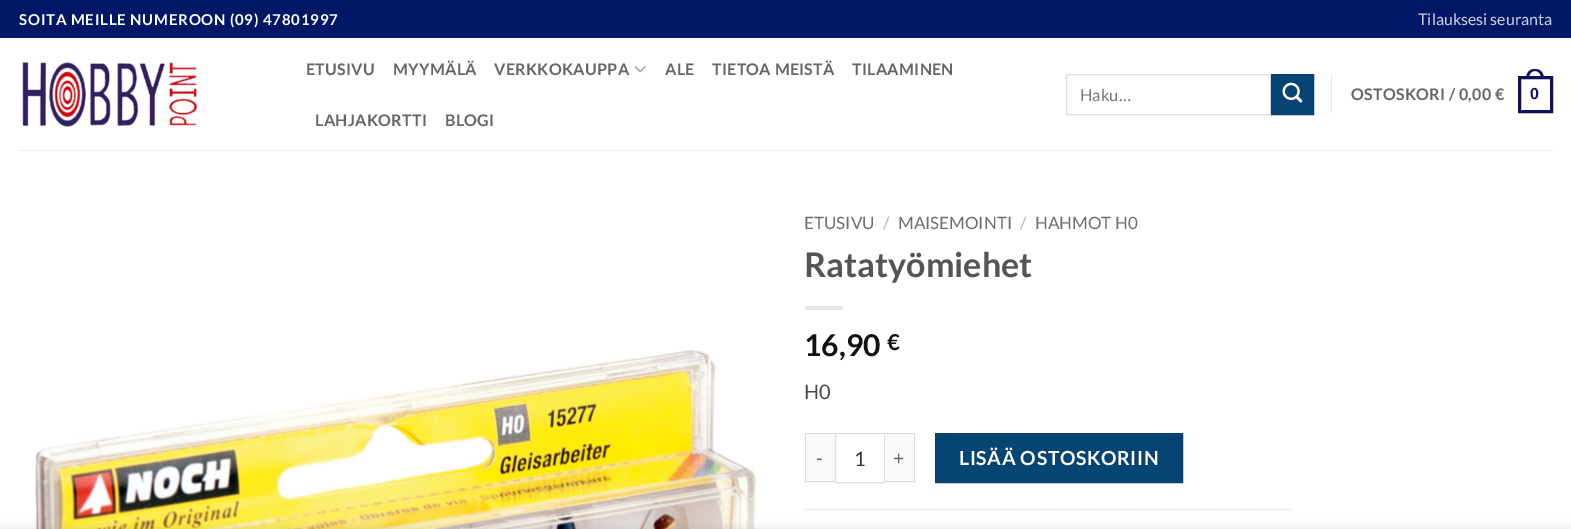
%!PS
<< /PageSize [1571 529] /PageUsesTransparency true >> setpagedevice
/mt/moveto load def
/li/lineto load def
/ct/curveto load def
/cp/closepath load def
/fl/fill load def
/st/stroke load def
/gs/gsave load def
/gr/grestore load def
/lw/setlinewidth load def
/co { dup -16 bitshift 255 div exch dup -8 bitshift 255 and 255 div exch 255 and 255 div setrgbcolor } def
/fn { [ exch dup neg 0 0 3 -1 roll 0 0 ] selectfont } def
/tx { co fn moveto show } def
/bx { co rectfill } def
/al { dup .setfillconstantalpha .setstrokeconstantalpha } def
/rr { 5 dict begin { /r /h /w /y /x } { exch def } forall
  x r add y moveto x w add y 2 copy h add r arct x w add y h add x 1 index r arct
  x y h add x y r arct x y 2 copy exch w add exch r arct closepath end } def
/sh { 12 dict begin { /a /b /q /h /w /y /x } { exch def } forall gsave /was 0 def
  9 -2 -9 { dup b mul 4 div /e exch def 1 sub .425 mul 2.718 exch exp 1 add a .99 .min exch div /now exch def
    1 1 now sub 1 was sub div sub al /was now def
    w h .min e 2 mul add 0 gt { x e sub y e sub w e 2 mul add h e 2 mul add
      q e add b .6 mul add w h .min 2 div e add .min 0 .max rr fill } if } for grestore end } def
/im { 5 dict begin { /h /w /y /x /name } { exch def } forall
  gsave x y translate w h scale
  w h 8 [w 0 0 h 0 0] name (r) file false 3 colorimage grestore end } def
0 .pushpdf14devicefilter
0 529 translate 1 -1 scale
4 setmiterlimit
0 0 1571 529 16#FFFFFF bx
0 0 1571 38 16#001766 bx
(media/1.raw) 22 62 176 65 im
(media/2.raw) 634 66 12 7 im
16#DDDDDD co
1066.5 74.5 204 40 rectstroke
16#064474 co
1271.5 74.5 mt 1313.5 74.5 li 1313.5 114.5 li 1271.5 114.5 li cp gs fl gr
16#06416E co
st
(media/3.raw) 1282 82 21 21 im
1331 75 1 38 16#E6E6E6 bx
16#12105B co
3 lw
1519.5 77.5 32 34 rectstroke
1535 69 mt 1541 69 1544 73.5 1544 79 ct 1526 79 li 1526 73.5 1529 69 1535 69 ct cp 1535 71 mt 1539.5 71 1541 75 1541 79 ct 1529 79 li 1529 75 1530.5 71 1535 71 ct cp eofill
19 150 1534 1 16#EDEDED bx
(media/4.raw) 34 349 723 180 im
805 306 38 4 16#E6E6E6 bx
806 434 29 49 16#F9F9F9 bx
805 433 30 1 16#DDDDDD bx
805 481 30 1 16#DDDDDD bx
805 433 1 50 16#DDDDDD bx
1 lw
835.5 433.5 49 49 rectstroke
885 434 29 49 16#F9F9F9 bx
885 433 30 1 16#DDDDDD bx
914 433 1 50 16#DDDDDD bx
885 481 30 1 16#DDDDDD bx
16#064474 co
935.5 433.5 mt 1182.5 433.5 li 1182.5 482.5 li 935.5 482.5 li cp gs fl gr
16#06416E co
st
16#DDDDDD co
1.2 lw
[1.25 1.25] 0 setdash
805 509.5 mt 1291 509.5 li st
16#000000 co
0 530 1571 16 0 5.5 .14 sh
/Lato-Bold 15 fn
16#FFFFFF co
19 25 mt .75 0 (SOITA MEILLE NUMEROON \(09\) 47801997) ashow
(Tilauksesi seuranta) 1418 25 /Lato-Regular 16 16#CCD1E0 tx
/Lato-Bold 16 fn
16#666666 co
306 75 mt .3 0 (ETUSIVU) ashow
393 75 mt .3 0 (MYYMÄLÄ) ashow
494 75 mt .3 0 (VERKKOKAUPPA) ashow
665 75 mt .3 0 (ALE) ashow
712 75 mt .3 0 (TIETOA MEISTÄ) ashow
852 75 mt .3 0 (TILAAMINEN) ashow
315 126 mt .3 0 (LAHJAKORTTI) ashow
445 126 mt .3 0 (BLOGI) ashow
(Haku…) 1080 101 /Lato-Regular 16.5 16#757575 tx
/Lato-Bold 16 fn
16#666666 co
1351 100 mt .3 0 (OSTOSKORI / 0,00 €) ashow
/LiberationSans-Bold 16 fn
16#12105B co
1530 99 mt .3 0 (0) ashow
(ETUSIVU) 804 229 /Lato-Regular 17 16#6E6E6E tx
(/) 883 229 /Lato-Regular 17 16#B2B2B2 tx
(MAISEMOINTI) 898 229 /Lato-Regular 17 16#6E6E6E tx
(/) 1020 229 /Lato-Regular 17 16#B2B2B2 tx
(HAHMOT H0) 1035 229 /Lato-Regular 17 16#6E6E6E tx
(Ratatyömiehet) 804 277 /Lato-Bold 34 16#555555 tx
(16,90) 804 356 /Lato-Bold 30 16#111111 tx
(€) 887 350 /Lato-Bold 22 16#111111 tx
(H0) 804 399 /Lato-Regular 20 16#4A4A4A tx
/Lato-Regular 19.4 fn
16#666666 co
816 465 mt .6 0 (-) ashow
(1) 854 466 /Lato-Regular 20 16#333333 tx
/Lato-Regular 19.4 fn
16#666666 co
893 465 mt .6 0 (+) ashow
/Lato-Bold 19.4 fn
16#FFFFFF co
959 465 mt .6 0 (LISÄÄ OSTOSKORIIN) ashow
.poppdf14devicefilter showpage
